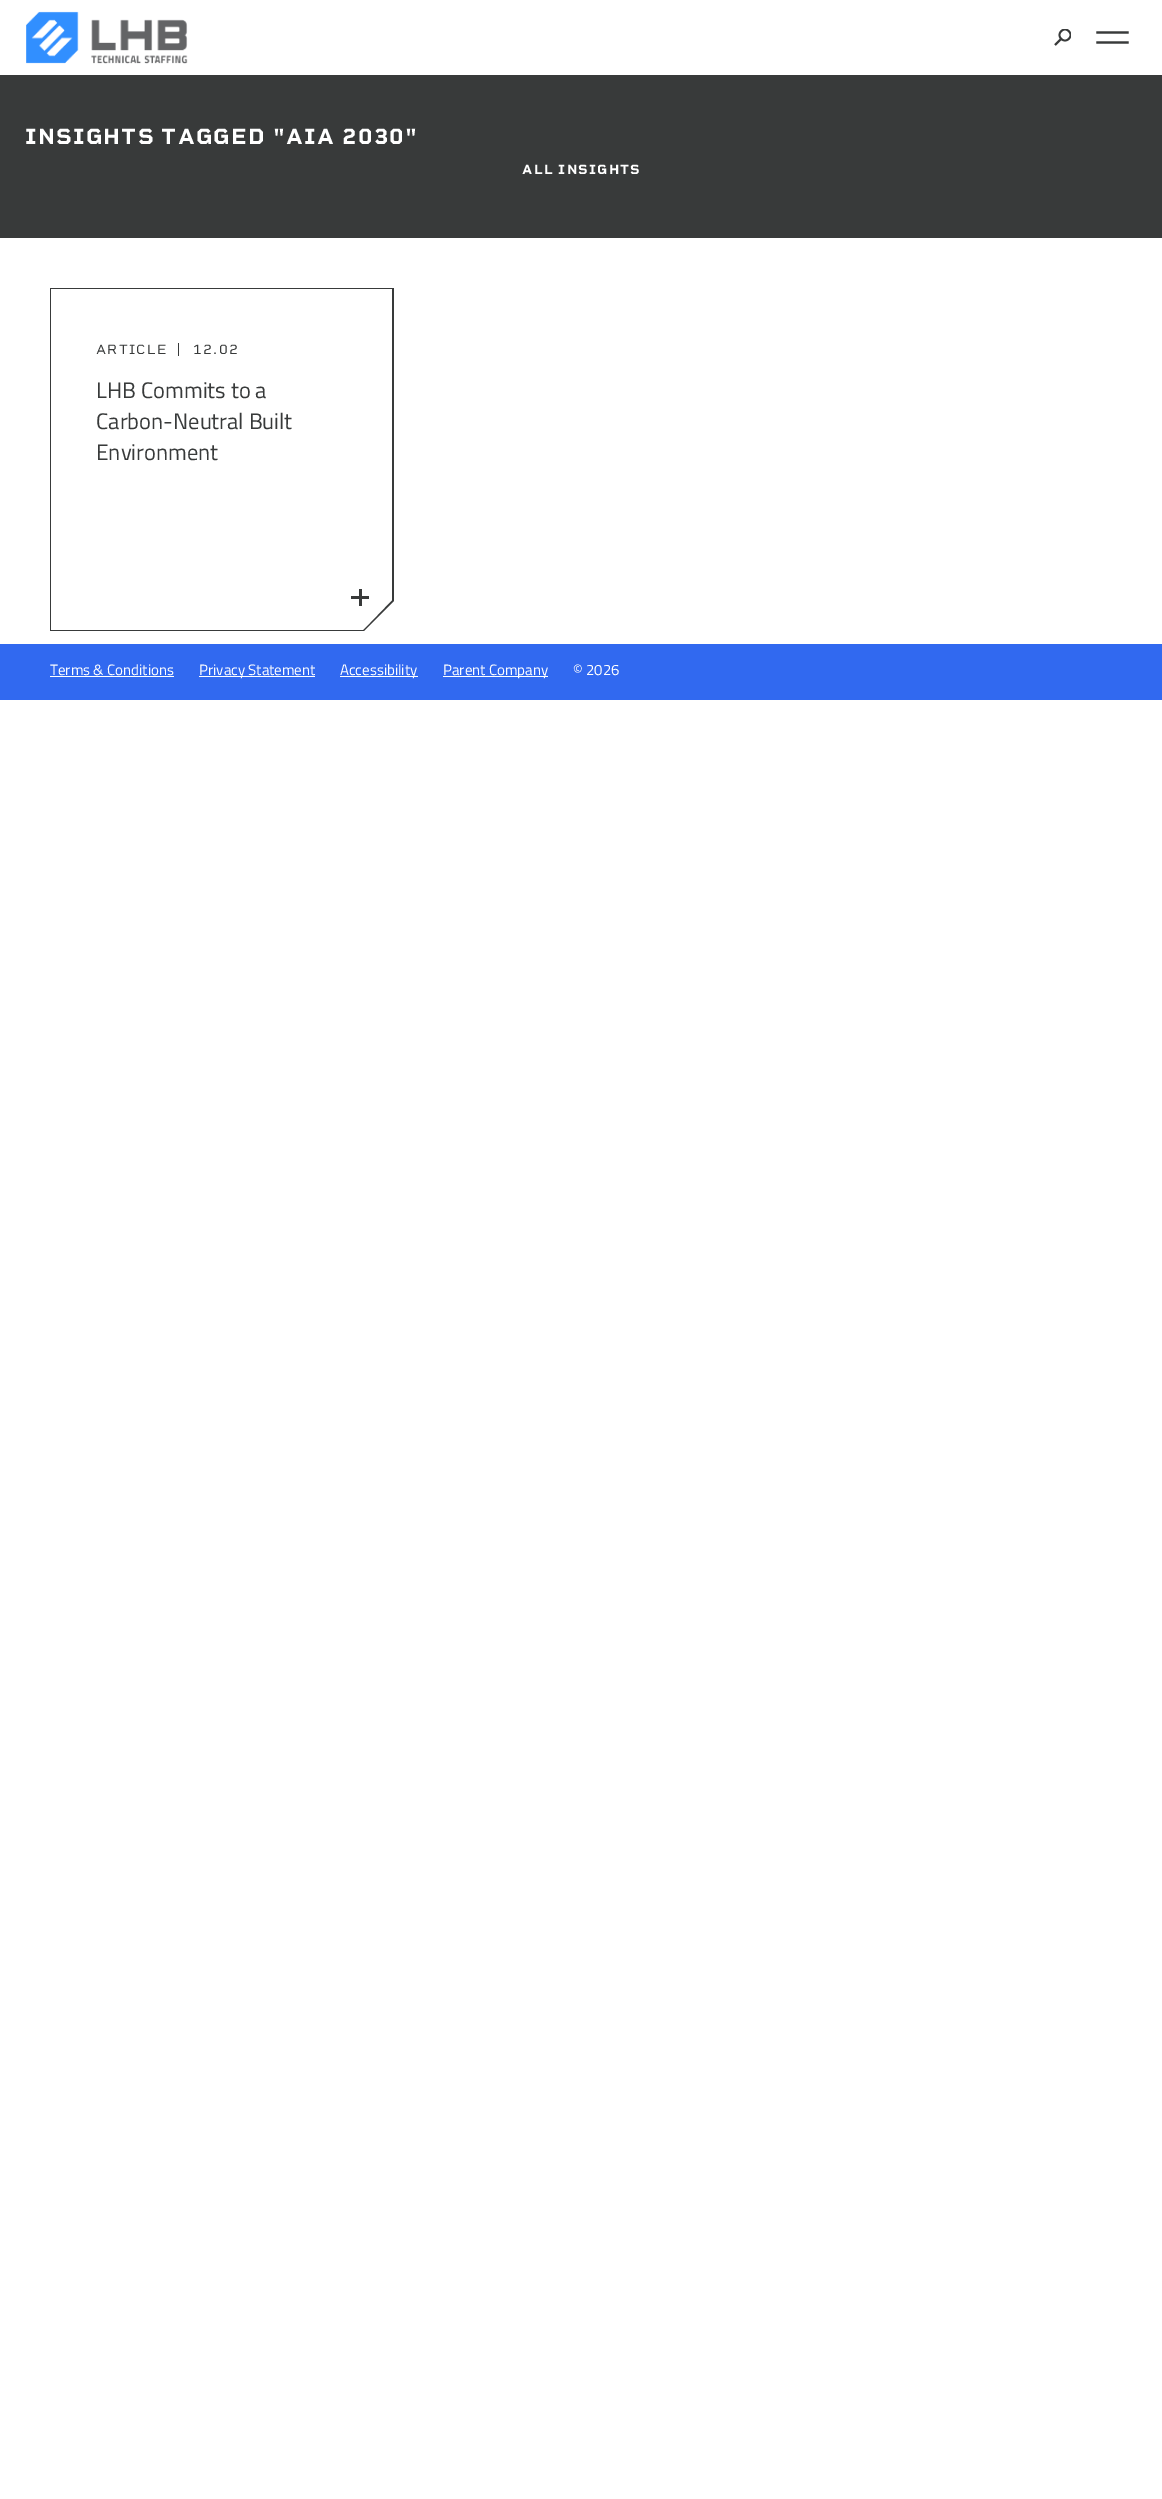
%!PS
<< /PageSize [1162 2499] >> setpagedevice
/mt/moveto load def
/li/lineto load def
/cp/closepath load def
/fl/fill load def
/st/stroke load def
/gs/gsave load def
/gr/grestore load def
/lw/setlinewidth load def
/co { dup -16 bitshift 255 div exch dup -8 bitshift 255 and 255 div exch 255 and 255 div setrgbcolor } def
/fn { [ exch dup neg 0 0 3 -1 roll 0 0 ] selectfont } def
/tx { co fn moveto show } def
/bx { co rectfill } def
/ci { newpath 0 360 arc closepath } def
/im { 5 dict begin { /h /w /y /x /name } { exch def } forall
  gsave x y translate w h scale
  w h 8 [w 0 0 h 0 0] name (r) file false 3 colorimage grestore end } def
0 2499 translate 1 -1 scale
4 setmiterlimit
0 0 1162 2499 16#FFFFFF bx
(media/1.raw) 26 11 162 53 im
gs
1054 29 17 17 rectclip
16#383A3A co
1.8 lw
1065 35 5.5 ci st
gr
16#383A3A co
1.8 lw
1061 39 mt 1055 45 li st
(media/2.raw) 1096 31 33 13 im
0 75 1162 163 16#383A3A bx
50 288 mt 50 631 li 364 631 li 394 601 li 394 288 li cp fl
16#FFFFFF co
392 289 mt 392 600 li 363 630 li 51 630 li 51 289 li cp fl
178 343 1 13 16#383A3A bx
351 596 18 3 16#383A3A bx
359 589 3 17 16#383A3A bx
0 644 1162 56 16#3169F0 bx
50 676 124 1 16#FFFFFF bx
199 676 116 1 16#FFFFFF bx
340 676 78 1 16#FFFFFF bx
443 676 105 1 16#FFFFFF bx
/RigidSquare-Bold 22.5 fn
25 144 mt 1.25 0 (INSIGHTS TAGGED "AIA 2030") ashow
/RigidSquare-Bold 13.75 fn
522 174 mt 1.25 0 (ALL INSIGHTS) ashow
/RigidSquare-Regular 13.75 fn
16#383A3A co
96 354 mt 1.25 0 (ARTICLE) ashow
193 354 mt 1.25 0 (12.02) ashow
(LHB Commits to a) 96 398 /TitilliumWeb-Regular 22.5 16#383A3A tx
(Carbon-Neutral Built) 96 429 /TitilliumWeb-Regular 22.5 16#383A3A tx
(Environment) 96 460 /TitilliumWeb-Regular 22.5 16#383A3A tx
(Terms & Conditions) 50 675 /TitilliumWeb-Regular 15 16#FFFFFF tx
(Privacy Statement) 199 675 /TitilliumWeb-Regular 15 16#FFFFFF tx
(Accessibility) 340 675 /TitilliumWeb-Regular 15 16#FFFFFF tx
(Parent Company) 443 675 /TitilliumWeb-Regular 15 16#FFFFFF tx
(© 2026) 573 675 /TitilliumWeb-Regular 15 16#FFFFFF tx
showpage
